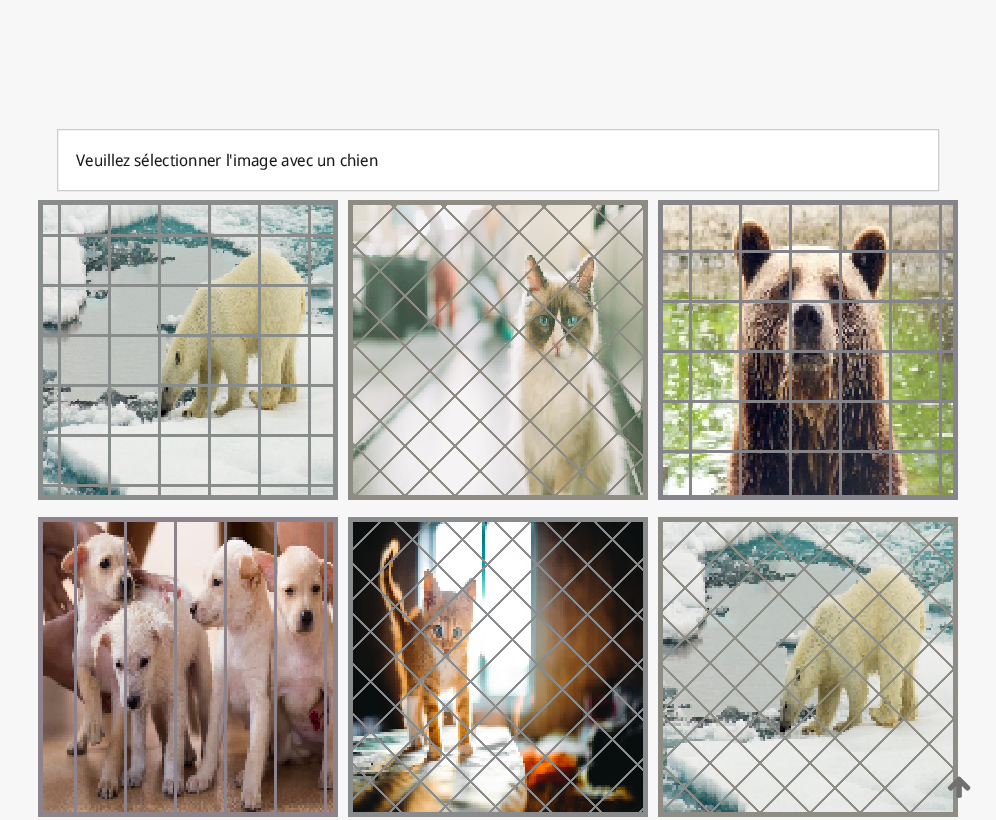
%!PS
<< /PageSize [996 820] >> setpagedevice
/mt/moveto load def
/li/lineto load def
/cp/closepath load def
/fl/fill load def
/st/stroke load def
/gs/gsave load def
/gr/grestore load def
/co { dup -16 bitshift 255 div exch dup -8 bitshift 255 and 255 div exch 255 and 255 div setrgbcolor } def
/fn { [ exch dup neg 0 0 3 -1 roll 0 0 ] selectfont } def
/tx { co fn moveto show } def
/bx { co rectfill } def
/im { 5 dict begin { /h /w /y /x /name } { exch def } forall
  gsave x y translate w h scale
  w h 8 [w 0 0 h 0 0] name (r) file false 3 colorimage grestore end } def
0 820 translate 1 -1 scale
4 setmiterlimit
0 0 996 820 16#F7F7F7 bx
16#FFFFFF co
57.5 129.5 mt 938.5 129.5 li 938.5 190.5 li 57.5 190.5 li cp gs fl gr
16#CCCCCC co
st
(media/1.raw) 38 200 300 300 im
(media/2.raw) 348 200 300 300 im
(media/3.raw) 658 200 300 300 im
(media/4.raw) 38 517 300 300 im
(media/5.raw) 348 517 300 300 im
(media/6.raw) 658 517 300 300 im
(media/7.raw) 947 776 24 22 im
(Veuillez sélectionner l'image avec un chien) 76 166 /NotoSansDisplay-Regular 16 16#1A1A1A tx
showpage
